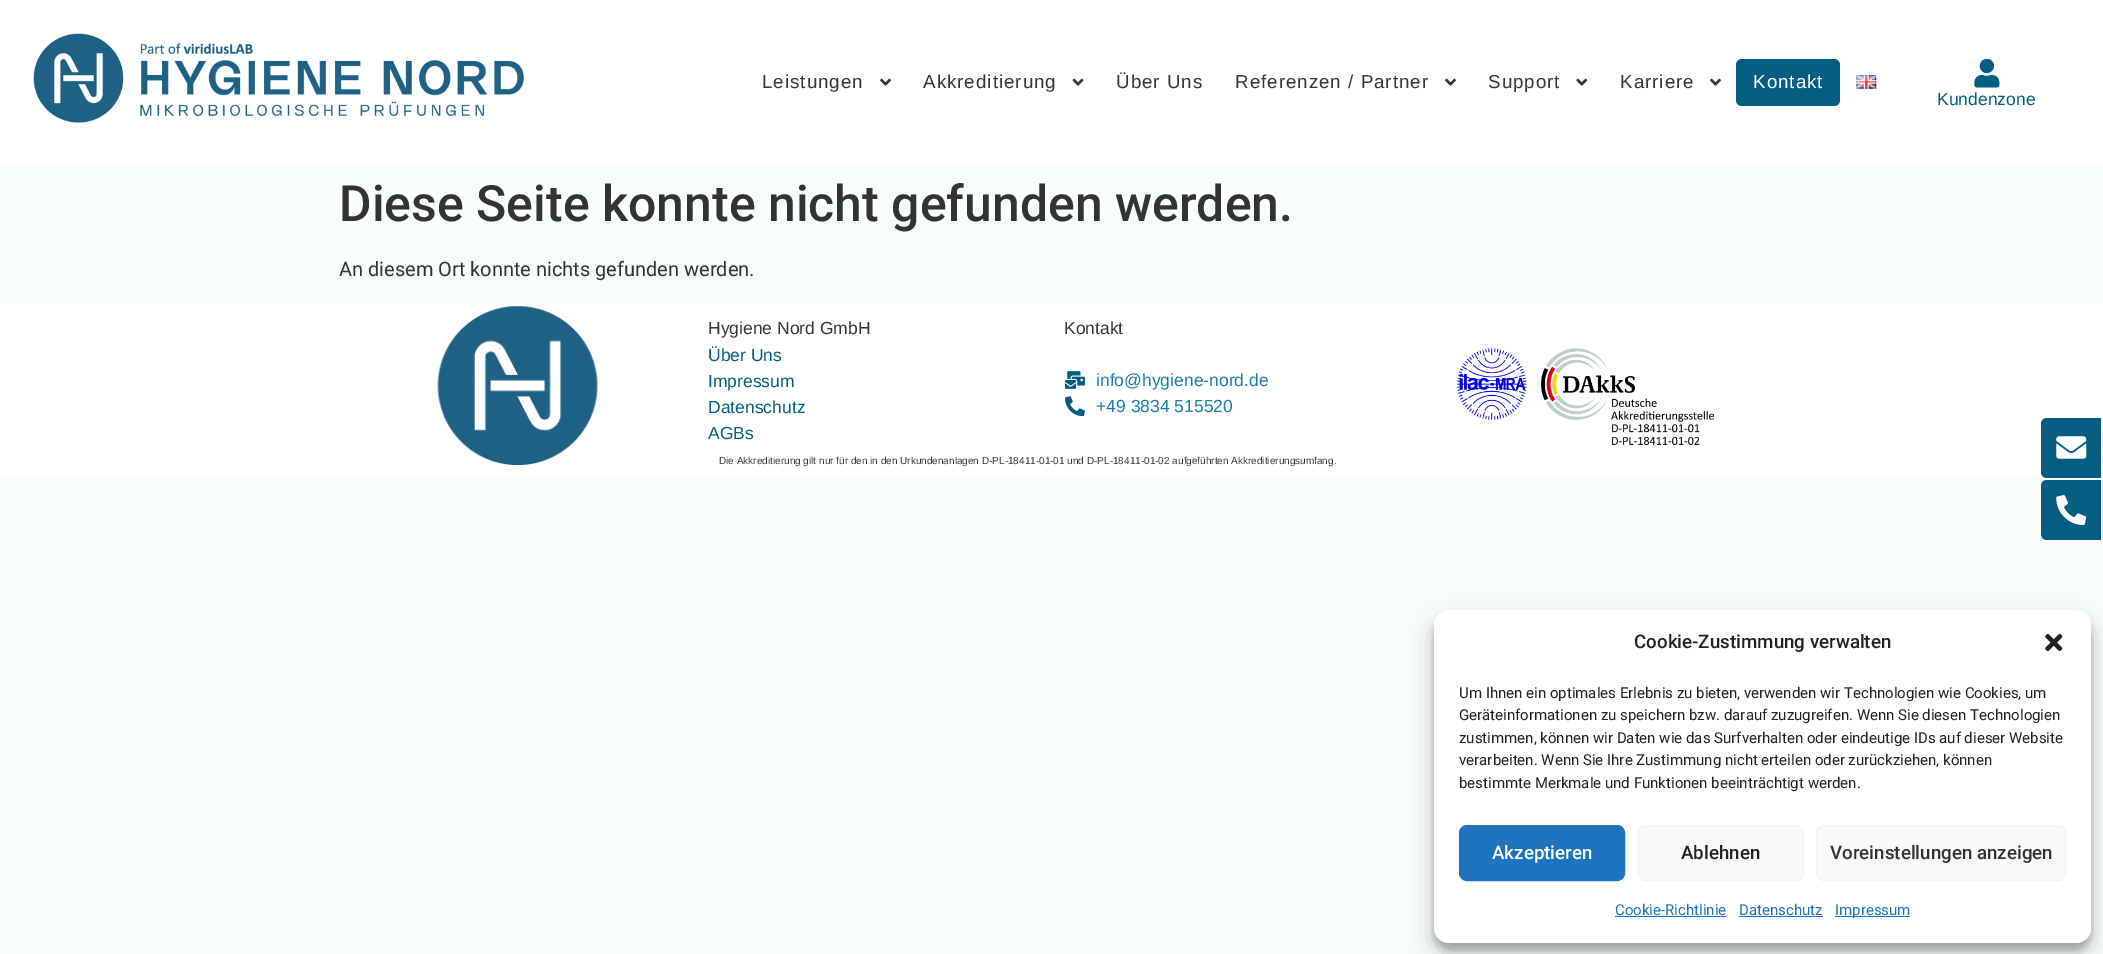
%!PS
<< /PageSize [2103 954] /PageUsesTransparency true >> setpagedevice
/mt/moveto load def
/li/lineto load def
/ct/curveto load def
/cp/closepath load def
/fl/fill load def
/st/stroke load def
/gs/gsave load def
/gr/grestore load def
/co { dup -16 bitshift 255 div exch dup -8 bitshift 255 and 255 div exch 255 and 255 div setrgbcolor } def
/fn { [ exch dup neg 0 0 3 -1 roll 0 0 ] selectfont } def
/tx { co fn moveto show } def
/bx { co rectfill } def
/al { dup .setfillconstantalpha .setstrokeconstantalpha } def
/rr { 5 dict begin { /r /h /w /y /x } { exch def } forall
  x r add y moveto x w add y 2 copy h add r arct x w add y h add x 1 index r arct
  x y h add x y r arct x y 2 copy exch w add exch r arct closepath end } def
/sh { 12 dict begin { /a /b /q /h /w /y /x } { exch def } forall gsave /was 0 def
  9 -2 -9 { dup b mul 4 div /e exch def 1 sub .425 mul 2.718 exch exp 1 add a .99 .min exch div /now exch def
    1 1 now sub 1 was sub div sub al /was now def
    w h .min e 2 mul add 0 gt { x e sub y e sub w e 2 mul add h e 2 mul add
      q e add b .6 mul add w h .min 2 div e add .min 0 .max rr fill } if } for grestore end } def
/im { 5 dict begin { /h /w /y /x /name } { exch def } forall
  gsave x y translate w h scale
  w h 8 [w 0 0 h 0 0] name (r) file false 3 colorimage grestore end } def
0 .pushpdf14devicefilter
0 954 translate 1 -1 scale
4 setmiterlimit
0 0 2103 954 16#F8FCFD bx
0 0 2103 165 16#FFFFFF bx
(media/1.raw) 33 33 491 90 im
(media/2.raw) 880 78 11 8 im
(media/3.raw) 1072 78 12 8 im
(media/2.raw) 1445 78 11 8 im
(media/4.raw) 1576 78 12 8 im
(media/2.raw) 1710 78 11 8 im
16#065D82 co
1736 59 104 47 6 rr fl
(media/5.raw) 1856 75 21 14 im
(media/6.raw) 1974 59 26 29 im
0 303 2103 175 16#FFFFFF bx
(media/7.raw) 437 306 161 159 im
(media/8.raw) 1065 371 20 18 im
(media/9.raw) 1065 396 20 20 im
(media/10.raw) 1456 348 258 98 im
16#065D82 co
2047 418 mt 2101 418 li 2101 478 li 2047 478 li 2043.5 478 2041 475.5 2041 472 ct 2041 424 li 2041 420.5 2043.5 418 2047 418 ct cp fl
(media/11.raw) 2056 436 31 23 im
2047 480 mt 2101 480 li 2101 540 li 2047 540 li 2043.5 540 2041 537.5 2041 534 ct 2041 486 li 2041 482.5 2043.5 480 2047 480 ct cp fl
(media/12.raw) 2056 495 31 30 im
16#000000 co
1434 618 657 332 15 4 .23 sh
1434 623 657 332 15 12.5 .19 sh
16#FFFFFF co
1434 610 657 333 15 rr fl
(media/13.raw) 2045 633 18 19 im
16#1E73BE co
1459.5 825.5 165 55 7.5 rr gs fl gr
st
16#F9F9F9 co
1638.5 825.5 165 55 7.5 rr gs fl gr
16#F2F2F2 co
st
16#F9F9F9 co
1816.5 825.5 249 55 7.5 rr gs fl gr
16#F2F2F2 co
st
1615 916 111 1 16#1E73BE bx
1739 916 84 1 16#1E73BE bx
1835 916 75 1 16#1E73BE bx
/LiberationSans-Regular 18.75 fn
16#393535 co
762 88 mt 1 0 (Leistungen) ashow
923 88 mt 1 0 (Akkreditierung) ashow
1116 88 mt 1 0 (Über Uns) ashow
1235 88 mt 1 0 (Referenzen / Partner) ashow
1488 88 mt 1 0 (Support) ashow
1620 88 mt 1 0 (Karriere) ashow
16#FFFFFF co
1753 88 mt 1 0 (Kontakt) ashow
(Kundenzone) 1937 105 /LiberationSans-Regular 17.5 16#065D82 tx
(Diese Seite konnte nicht gefunden werden.) 339 221 /Roboto-Medium 50 16#333333 tx
(An diesem Ort konnte nichts gefunden werden.) 339 276 /Roboto-Regular 20 16#333333 tx
(Hygiene Nord GmbH) 708 334 /LiberationSans-Regular 17.5 16#393535 tx
(Über Uns) 708 361 /LiberationSans-Regular 17.5 16#065D82 tx
(Impressum) 708 387 /LiberationSans-Regular 17.5 16#065D82 tx
(Datenschutz) 708 413 /LiberationSans-Regular 17.5 16#065D82 tx
(AGBs) 708 439 /LiberationSans-Regular 17.5 16#065D82 tx
(Kontakt) 1064 334 /LiberationSans-Regular 17.5 16#393535 tx
(info@hygiene-nord.de) 1096 386 /LiberationSans-Regular 17.5 16#197EAA tx
(+49 3834 515520) 1096 412 /LiberationSans-Regular 17.5 16#197EAA tx
(Die Akkreditierung gilt nur für den in den Urkundenanlagen D-PL-18411-01-01 und D-PL-18411-01-02 aufgeführten Akkreditierungsumfang.) 719 464 /LiberationSans-Regular 10 16#393535 tx
(Cookie-Zustimmung verwalten) 1634 648 /Roboto-Medium 18.75 16#222222 tx
(Um Ihnen ein optimales Erlebnis zu bieten, verwenden wir Technologien wie Cookies, um) 1459 698 /Roboto-Regular 15 16#222222 tx
(Geräteinformationen zu speichern bzw. darauf zuzugreifen. Wenn Sie diesen Technologien) 1459 720 /Roboto-Regular 15 16#222222 tx
(zustimmen, können wir Daten wie das Surfverhalten oder eindeutige IDs auf dieser Website) 1459 743 /Roboto-Regular 15 16#222222 tx
(verarbeiten. Wenn Sie Ihre Zustimmung nicht erteilen oder zurückziehen, können) 1459 765 /Roboto-Regular 15 16#222222 tx
(bestimmte Merkmale und Funktionen beeinträchtigt werden.) 1459 788 /Roboto-Regular 15 16#222222 tx
(Akzeptieren) 1492 859 /Roboto-Medium 18.75 16#FFFFFF tx
(Ablehnen) 1681 859 /Roboto-Medium 18.75 16#222222 tx
(Voreinstellungen anzeigen) 1830 859 /Roboto-Medium 18.75 16#333333 tx
(Cookie-Richtlinie) 1615 915 /Roboto-Regular 15 16#1E73BE tx
(Datenschutz) 1739 915 /Roboto-Regular 15 16#1E73BE tx
(Impressum) 1835 915 /Roboto-Regular 15 16#1E73BE tx
.poppdf14devicefilter showpage
